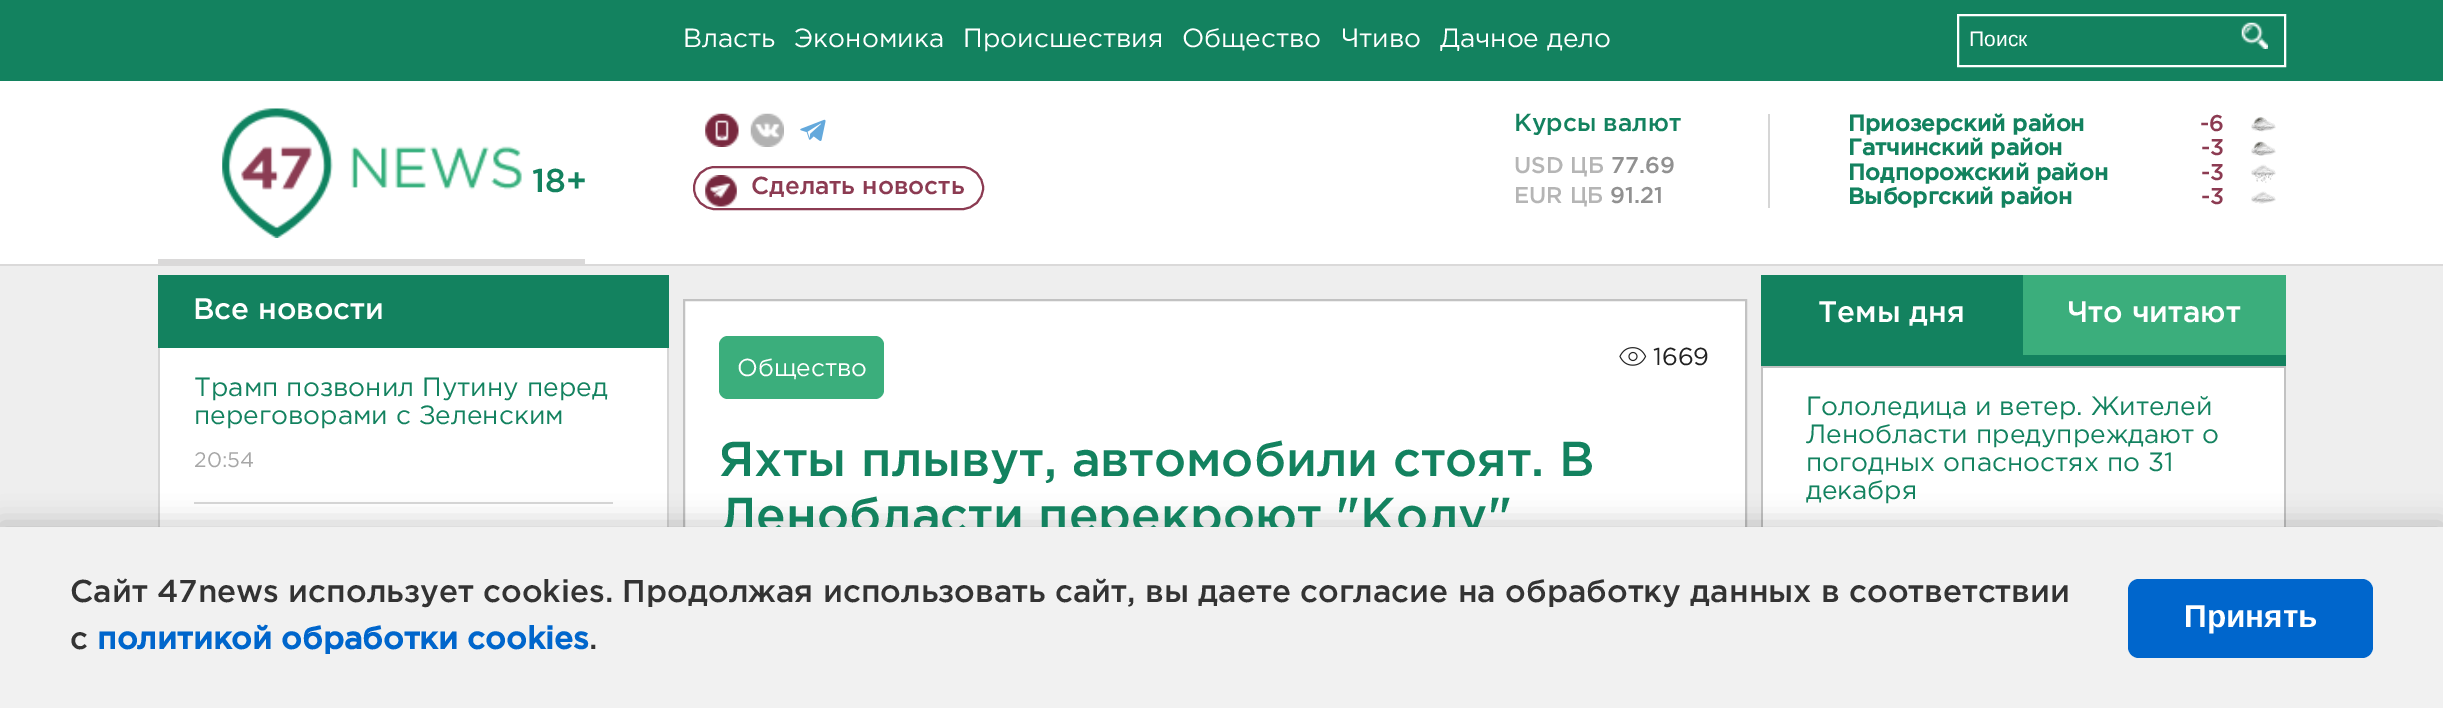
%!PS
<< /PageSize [2443 708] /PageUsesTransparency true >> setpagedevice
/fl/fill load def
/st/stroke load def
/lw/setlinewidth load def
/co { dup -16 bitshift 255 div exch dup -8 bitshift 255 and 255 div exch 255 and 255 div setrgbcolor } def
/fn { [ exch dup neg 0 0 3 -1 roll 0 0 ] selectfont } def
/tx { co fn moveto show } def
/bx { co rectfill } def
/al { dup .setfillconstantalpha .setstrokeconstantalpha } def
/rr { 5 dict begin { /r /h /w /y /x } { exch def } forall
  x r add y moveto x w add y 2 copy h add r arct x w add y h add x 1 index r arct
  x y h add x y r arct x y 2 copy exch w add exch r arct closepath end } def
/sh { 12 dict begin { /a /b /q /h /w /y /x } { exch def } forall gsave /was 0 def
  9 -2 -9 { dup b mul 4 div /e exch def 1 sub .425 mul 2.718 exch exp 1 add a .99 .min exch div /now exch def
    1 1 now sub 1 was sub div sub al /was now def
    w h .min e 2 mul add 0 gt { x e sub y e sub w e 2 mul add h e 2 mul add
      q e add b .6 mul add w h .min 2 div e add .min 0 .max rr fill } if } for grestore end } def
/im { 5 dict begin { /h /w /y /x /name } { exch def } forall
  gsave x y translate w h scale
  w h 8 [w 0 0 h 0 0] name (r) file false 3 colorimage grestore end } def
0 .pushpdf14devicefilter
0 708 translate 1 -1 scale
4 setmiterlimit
0 0 2443 708 16#EEEEEE bx
0 0 2443 81 16#13825F bx
16#FFFFFF co
2 lw
1958 15 327 51 rectstroke
(media/1.raw) 2241 22 27 27 im
0 81 2443 183 16#FFFFFF bx
0 264 2443 2 16#DAD9D9 bx
158 259 427 5 16#DAD9D9 bx
(media/2.raw) 222 108 300 130 im
1768 114 2 94 16#D6D6D6 bx
(media/3.raw) 2251 117 25 15 im
(media/4.raw) 2251 141 25 15 im
(media/5.raw) 2251 164 25 19 im
(media/6.raw) 2251 191 25 13 im
(media/7.raw) 705 113 34 34 im
(media/8.raw) 750 113 34 34 im
(media/9.raw) 800 119 26 22 im
(media/10.raw) 705 175 32 32 im
16#8C3B52 co
694 167 289 42 21 rr st
158 275 511 73 16#13825F bx
160 348 507 179 16#FFFFFF bx
667 348 2 179 16#D6D6D6 bx
158 348 2 179 16#D6D6D6 bx
194 502 419 2 16#D8D8D8 bx
685 301 1060 226 16#FFFFFF bx
16#C2C2C2 co
684 300 1062 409 rectstroke
16#3BAE7C co
719 336 165 63 9 rr fl
(media/11.raw) 1619 347 28 19 im
1761 275 525 91 16#13825F bx
2023 275 263 80 16#3BAE7C bx
1763 368 521 159 16#FFFFFF bx
1761 366 525 2 16#C2C2C2 bx
2284 366 2 161 16#C2C2C2 bx
1761 366 2 161 16#C2C2C2 bx
16#000000 co
0 523 2443 182 0 13 .2 sh
(Власть) 683 47 /Gotham-Regular 26.25 16#FFFFFF tx
(Экономика) 794 47 /Gotham-Regular 26.25 16#FFFFFF tx
(Происшествия) 963 47 /Gotham-Regular 26.25 16#FFFFFF tx
(Общество) 1182 47 /Gotham-Regular 26.25 16#FFFFFF tx
(Чтиво) 1341 47 /Gotham-Regular 26.25 16#FFFFFF tx
(Дачное дело) 1440 47 /Gotham-Regular 26.25 16#FFFFFF tx
(Поиск) 1969 46 /LiberationSans-Regular 21 16#FFFFFF tx
(Курсы валют) 1514 131 /Gotham-Medium 24.5 16#13825F tx
(USD ЦБ) 1514 173 /Gotham-Medium 22.75 16#B5B5B5 tx
(77.69) 1611 173 /Gotham-Medium 22.75 16#919191 tx
(EUR ЦБ) 1514 203 /Gotham-Medium 22.75 16#B5B5B5 tx
(91.21) 1610 203 /Gotham-Medium 22.75 16#919191 tx
(Приозерский район) 1848 131 /Gotham-Bold 22.75 16#13825F tx
(-6) 2200 131 /Gotham-Medium 22.75 16#8C3B52 tx
(Гатчинский район) 1848 155 /Gotham-Bold 22.75 16#13825F tx
(-3) 2201 155 /Gotham-Medium 22.75 16#8C3B52 tx
(Подпорожский район) 1848 180 /Gotham-Bold 22.75 16#13825F tx
(-3) 2201 180 /Gotham-Medium 22.75 16#8C3B52 tx
(Выборгский район) 1848 204 /Gotham-Bold 22.75 16#13825F tx
(-3) 2201 204 /Gotham-Medium 22.75 16#8C3B52 tx
(18+) 532 192 /Gotham-Medium 33 16#13825F tx
(Сделать новость) 751 194 /Gotham-Medium 24.5 16#8C3B52 tx
(Все новости) 193 319 /Gotham-Medium 29.75 16#FFFFFF tx
(Трамп позвонил Путину перед) 194 396 /Gotham-Regular 26.25 16#13825F tx
(переговорами с Зеленским) 194 424 /Gotham-Regular 26.25 16#13825F tx
(20:54) 194 467 /Gotham-Regular 21 16#A7A7A7 tx
(Общество) 737 376 /Gotham-Regular 24.5 16#FFFFFF tx
(1669) 1653 365 /Gotham-Regular 24.5 16#222222 tx
(Яхты плывут, автомобили стоят. В) 719 476 /Gotham-Medium 49 16#13825F tx
(Ленобласти перекроют "Колу") 719 532 /Gotham-Medium 49 16#13825F tx
(Темы дня) 1818 322 /Gotham-Medium 29.75 16#FFFFFF tx
(Что читают) 2067 322 /Gotham-Medium 29.75 16#FFFFFF tx
(Гололедица и ветер. Жителей) 1806 415 /Gotham-Regular 26.25 16#13825F tx
(Ленобласти предупреждают о) 1806 443 /Gotham-Regular 26.25 16#13825F tx
(погодных опасностях по 31) 1806 471 /Gotham-Regular 26.25 16#13825F tx
(декабря) 1806 499 /Gotham-Regular 26.25 16#13825F tx
0 527 2443 181 16#F1F1F1 bx
(Сайт 47news использует cookies. Продолжая использовать сайт, вы даете согласие на обработку данных в соответствии) 70 602 /Gotham-Medium 31.5 16#333333 tx
(с) 70 649 /Gotham-Medium 31.5 16#333333 tx
(политикой обработки cookies) 97 649 /Gotham-Bold 31.5 16#0066CC tx
(.) 589 649 /Gotham-Medium 31.5 16#333333 tx
16#0066CC co
2128 579 245 79 11 rr fl
(Принять) 2184 627 /LiberationSans-Bold 31.5 16#FFFFFF tx
.poppdf14devicefilter showpage
